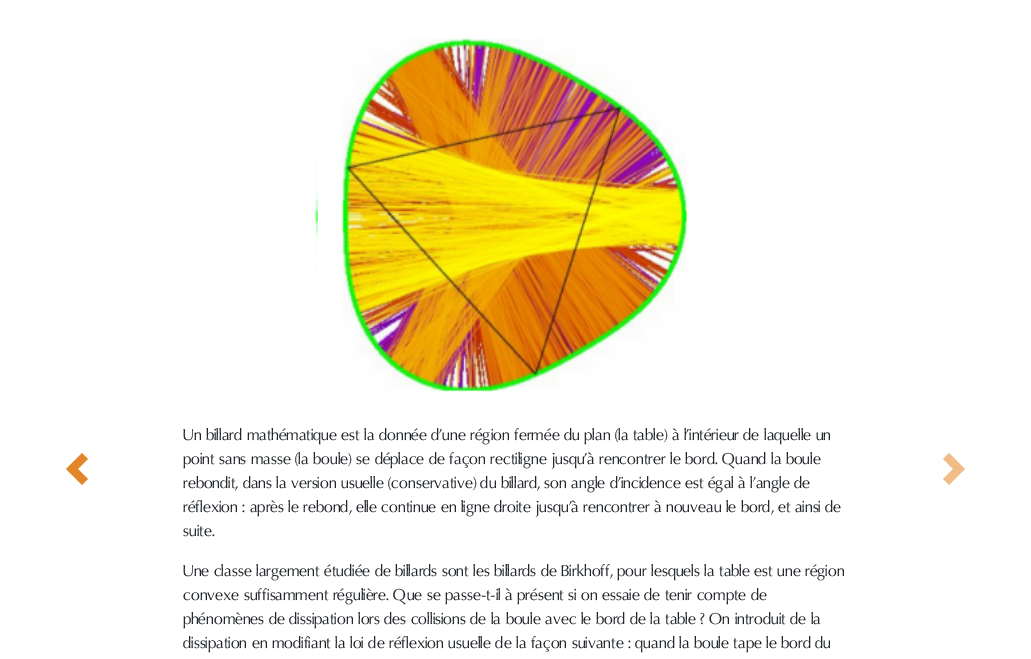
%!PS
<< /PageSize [1031 659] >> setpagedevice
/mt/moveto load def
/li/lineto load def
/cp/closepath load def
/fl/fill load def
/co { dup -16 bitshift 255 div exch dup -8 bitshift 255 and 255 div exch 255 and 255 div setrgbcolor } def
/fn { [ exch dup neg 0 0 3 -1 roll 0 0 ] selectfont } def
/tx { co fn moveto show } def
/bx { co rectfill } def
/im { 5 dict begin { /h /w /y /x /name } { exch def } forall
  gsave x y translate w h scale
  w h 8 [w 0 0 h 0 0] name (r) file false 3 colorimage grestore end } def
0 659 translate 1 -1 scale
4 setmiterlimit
0 0 1031 659 16#FFFFFF bx
16#E38628 co
82 453 mt 66 469 li 82 485 li 88 479 li 78 469 li 88 459 li cp fl
(media/1.raw) 315 38 372 354 im
16#F0BC88 co
949 453 mt 943 459 li 953 469 li 943 479 li 949 485 li 965 469 li cp fl
(Un billard mathématique est la donnée d’une région fermée du plan \(la table\) à l’intérieur de laquelle un) 183 440 /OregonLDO-Regular 16 16#212529 tx
(point sans masse \(la boule\) se déplace de façon rectiligne jusqu’à rencontrer le bord. Quand la boule) 183 464 /OregonLDO-Regular 16 16#212529 tx
(rebondit, dans la version usuelle \(conservative\) du billard, son angle d’incidence est égal à l’angle de) 183 488 /OregonLDO-Regular 16 16#212529 tx
(réflexion : après le rebond, elle continue en ligne droite jusqu’à rencontrer à nouveau le bord, et ainsi de) 183 512 /OregonLDO-Regular 16 16#212529 tx
(suite.) 183 536 /OregonLDO-Regular 16 16#212529 tx
(Une classe largement étudiée de billards sont les billards de Birkhoff, pour lesquels la table est une région) 183 576 /OregonLDO-Regular 16 16#212529 tx
(convexe suffisamment régulière. Que se passe-t-il à présent si on essaie de tenir compte de) 183 600 /OregonLDO-Regular 16 16#212529 tx
(phénomènes de dissipation lors des collisions de la boule avec le bord de la table ? On introduit de la) 183 624 /OregonLDO-Regular 16 16#212529 tx
(dissipation en modifiant la loi de réflexion usuelle de la façon suivante : quand la boule tape le bord du) 183 648 /OregonLDO-Regular 16 16#212529 tx
showpage
